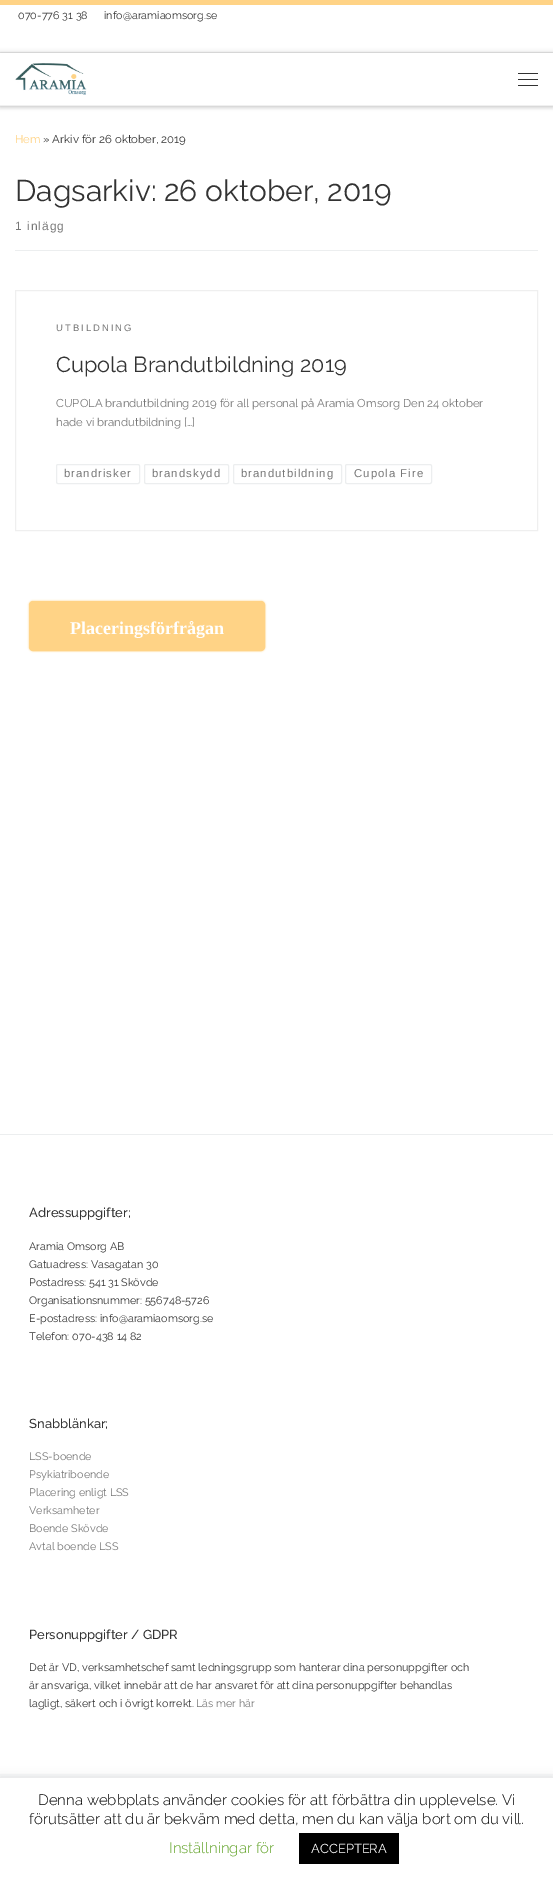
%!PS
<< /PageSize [553 1881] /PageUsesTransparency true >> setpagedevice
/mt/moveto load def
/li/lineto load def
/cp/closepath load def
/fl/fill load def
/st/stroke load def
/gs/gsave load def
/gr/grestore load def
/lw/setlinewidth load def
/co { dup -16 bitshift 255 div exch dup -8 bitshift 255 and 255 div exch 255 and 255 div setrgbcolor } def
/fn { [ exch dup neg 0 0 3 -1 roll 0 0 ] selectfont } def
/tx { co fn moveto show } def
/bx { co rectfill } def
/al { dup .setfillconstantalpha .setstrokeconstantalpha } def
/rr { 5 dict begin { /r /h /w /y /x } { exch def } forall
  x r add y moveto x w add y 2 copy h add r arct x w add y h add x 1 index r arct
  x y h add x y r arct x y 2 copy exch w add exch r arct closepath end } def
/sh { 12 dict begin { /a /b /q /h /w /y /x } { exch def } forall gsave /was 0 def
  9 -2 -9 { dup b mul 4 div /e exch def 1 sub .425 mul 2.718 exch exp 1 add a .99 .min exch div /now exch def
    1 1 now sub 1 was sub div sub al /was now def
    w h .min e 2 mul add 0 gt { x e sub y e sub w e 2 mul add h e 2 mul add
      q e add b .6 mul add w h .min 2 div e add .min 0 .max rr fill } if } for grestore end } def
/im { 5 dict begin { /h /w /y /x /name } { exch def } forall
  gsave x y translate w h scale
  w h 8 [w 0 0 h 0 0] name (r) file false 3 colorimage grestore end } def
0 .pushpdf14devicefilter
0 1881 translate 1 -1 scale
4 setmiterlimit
0 0 553 1881 16#FFFFFF bx
gs
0 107 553 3 rectclip
16#666666 co
0 2 553 107 0 1 .08 sh
gr
0 0 553 5 16#FFD386 bx
0 52 553 1 16#ECECEC bx
0 106 553 1 16#EFEFEF bx
gs
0 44 mt 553 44 li 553 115 li 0 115 li cp 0 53 mt 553 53 li 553 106 li 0 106 li cp eoclip newpath
16#000000 co
0 53 553 53 0 2.5 .2 sh
gr
(media/1.raw) 15 63 72 32 im
16#313131 co
518 73 20 1 .5 rr fl
518 79 20 1 .5 rr fl
518 85 20 1 .5 rr fl
0 105 553 1 16#F0F0F0 bx
15 250 523 1 16#ECEEEF bx
16#EFEFEF co
15.5 290.5 522 240 rectstroke
16#ECEEEF co
56.5 464.5 83 19 1.5 rr st
144.5 464.5 84 19 1.5 rr st
233.5 464.5 108 19 1.5 rr st
345.5 464.5 86 19 1.5 rr st
16#FFD386 co
29 601 236 50 4 1 1 sh
30 602 234 48 3 rr gs fl gr
2 lw
st
0 1134 553 1 16#ECEEEF bx
0 1774 553 4 16#F7F8F9 bx
16#ACABAB co
0 1777 553 103 0 5 .3 sh
0 1778 553 103 16#FFFFFF bx
299 1833 100 31 16#000000 bx
(070-776 31 38) 18 19 /Raleway-Regular 10.8 16#333333 tx
(info@aramiaomsorg.se) 104 19 /Raleway-Regular 10.8 16#333333 tx
(Hem) 15 143 /Raleway-Regular 11.4 16#FFD386 tx
(» Arkiv för 26 oktober, 2019) 43 143 /Raleway-Regular 11.4 16#333333 tx
(Dagsarkiv: 26 oktober, 2019) 15 201 /Raleway-Regular 29.9 16#333333 tx
/LiberationSans-Regular 12 fn
16#777777 co
15 230 mt 1 0 (1 inlägg) ashow
/LiberationSans-Regular 9.5 fn
56 331 mt 2 0 (UTBILDNING) ashow
(Cupola Brandutbildning 2019) 56 372 /Raleway-Regular 21.7 16#333333 tx
(CUPOLA brandutbildning 2019 för all personal på Aramia Omsorg Den 24 oktober) 56 407 /Raleway-Regular 11.4 16#777777 tx
(hade vi brandutbildning […]) 56 426 /Raleway-Regular 11.4 16#777777 tx
/LiberationSans-Regular 11.4 fn
64 477 mt 1 0 (brandrisker) ashow
152 477 mt 1 0 (brandskydd) ashow
241 477 mt 1 0 (brandutbildning) ashow
354 477 mt 1 0 (Cupola Fire) ashow
(Placeringsförfrågan) 70 634 /LiberationSerif-Bold 18 16#FFFFFF tx
(Adressuppgifter;) 29 1217 /Raleway-Medium 13 16#333333 tx
(Aramia Omsorg AB) 29 1250 /Raleway-Regular 10.8 16#333333 tx
(Gatuadress: Vasagatan 30) 29 1268 /Raleway-Regular 10.8 16#333333 tx
(Postadress: 541 31 Skövde) 29 1286 /Raleway-Regular 10.8 16#333333 tx
(Organisationsnummer: 556748-5726) 29 1304 /Raleway-Regular 10.8 16#333333 tx
(E-postadress: info@aramiaomsorg.se) 29 1322 /Raleway-Regular 10.8 16#333333 tx
(Telefon: 070-438 14 82) 29 1340 /Raleway-Regular 10.8 16#333333 tx
(Snabblänkar;) 29 1428 /Raleway-Medium 13 16#333333 tx
(LSS-boende) 29 1460 /Raleway-Regular 10.8 16#777777 tx
(Psykiatriboende) 29 1478 /Raleway-Regular 10.8 16#777777 tx
(Placering enligt LSS) 29 1496 /Raleway-Regular 10.8 16#777777 tx
(Verksamheter) 29 1514 /Raleway-Regular 10.8 16#777777 tx
(Boende Skövde) 29 1532 /Raleway-Regular 10.8 16#777777 tx
(Avtal boende LSS) 29 1550 /Raleway-Regular 10.8 16#777777 tx
(Personuppgifter / GDPR) 29 1639 /Raleway-Medium 13 16#333333 tx
(Det är VD, verksamhetschef samt ledningsgrupp som hanterar dina personuppgifter och) 29 1671 /Raleway-Regular 10.8 16#333333 tx
(är ansvariga, vilket innebär att de har ansvaret för att dina personuppgifter behandlas) 29 1689 /Raleway-Regular 10.8 16#333333 tx
(lagligt, säkert och i övrigt korrekt.) 29 1707 /Raleway-Regular 10.8 16#333333 tx
(Läs mer här) 196 1707 /Raleway-Regular 10.8 16#777777 tx
(Denna webbplats använder cookies för att förbättra din upplevelse. Vi) 38 1805 /Raleway-Light 15 16#000000 tx
(förutsätter att du är bekväm med detta, men du kan välja bort om du vill.) 29 1824 /Raleway-Light 15 16#000000 tx
(Inställningar för) 169 1853 /Raleway-Light 15 16#62A329 tx
(ACCEPTERA) 311 1853 /Raleway-Regular 13 16#FFFFFF tx
.poppdf14devicefilter showpage
